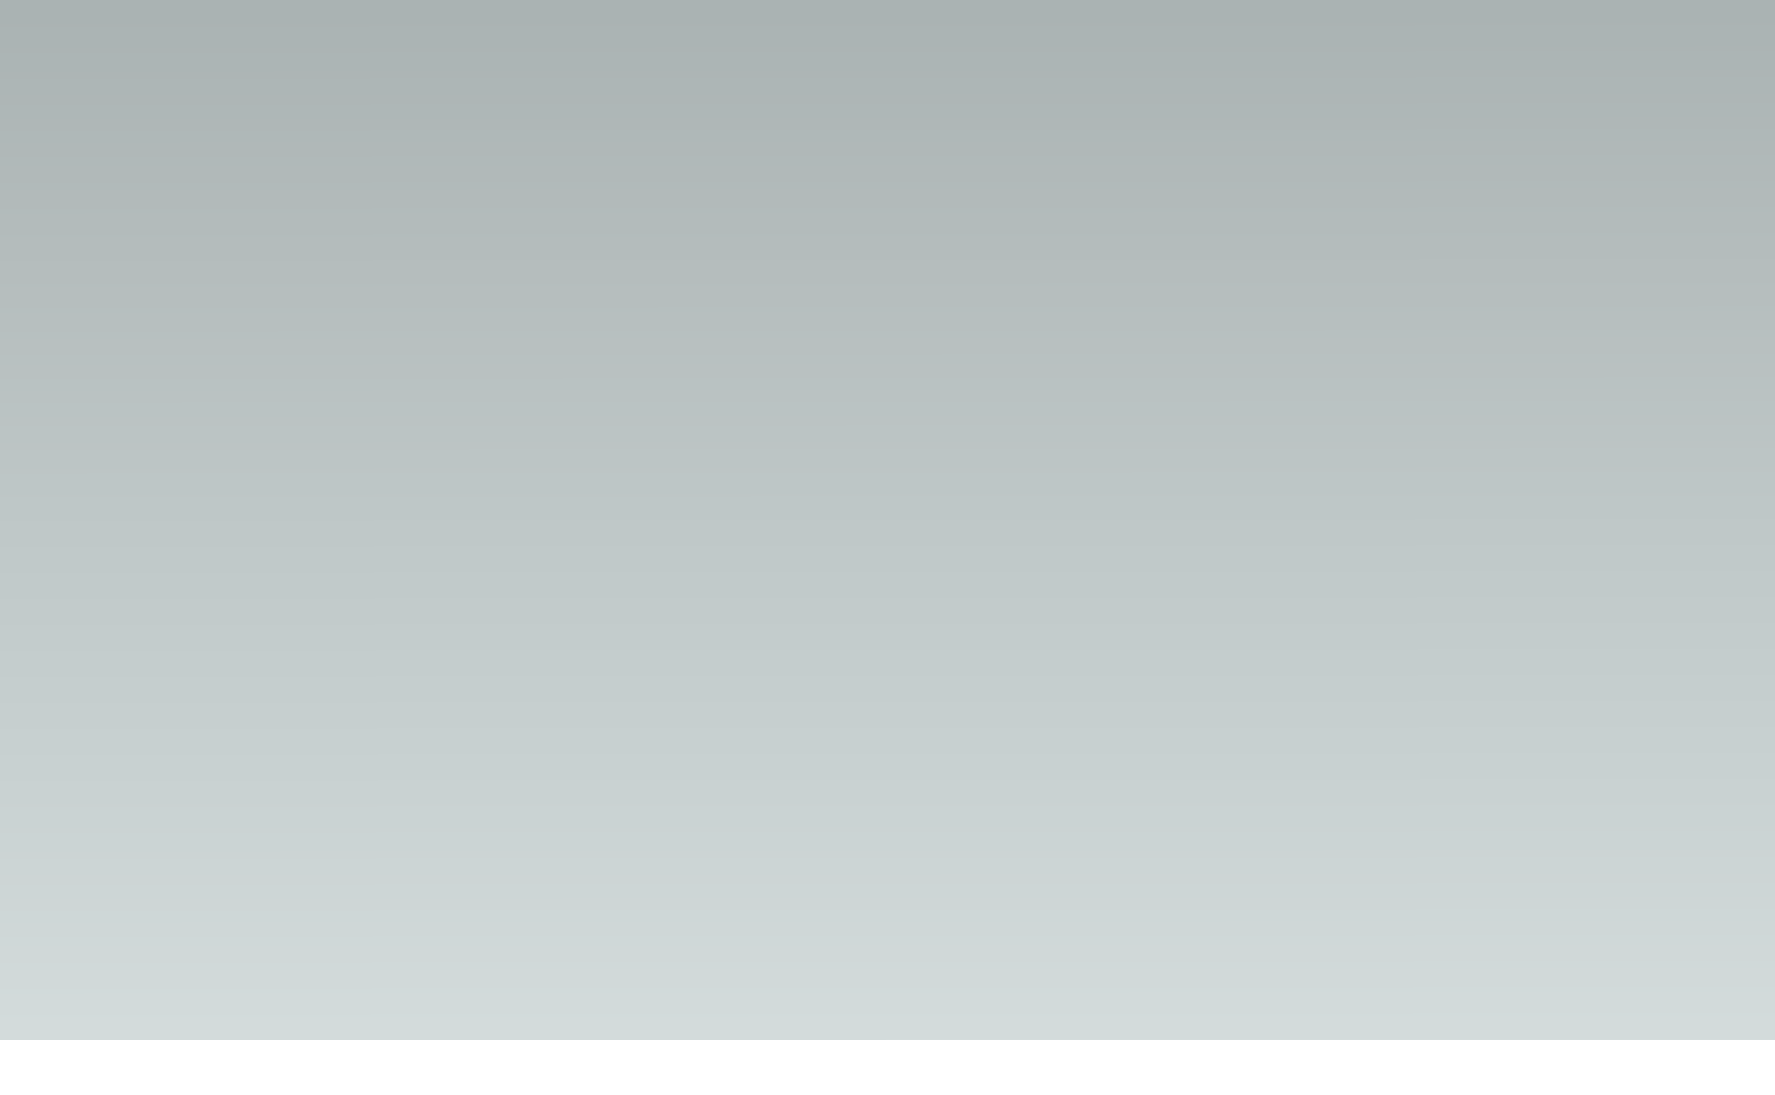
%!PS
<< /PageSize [1775 1095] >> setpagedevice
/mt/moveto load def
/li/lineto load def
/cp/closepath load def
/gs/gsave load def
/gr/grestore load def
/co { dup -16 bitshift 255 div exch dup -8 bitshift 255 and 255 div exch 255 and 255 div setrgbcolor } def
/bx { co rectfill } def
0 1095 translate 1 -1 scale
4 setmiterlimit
0 0 1775 1095 16#FFFFFF bx
gs 0 0 mt 1775 0 li 1775 1040 li 0 1040 li cp clip newpath
<< /ShadingType 2 /ColorSpace /DeviceRGB /Coords [887 0 888 1040] /Extend [true true] /Function << /FunctionType 2 /Domain [0 1] /C0 [.667 .702 .702] /C1 [.831 .863 .863] /N 1 >> >> shfill gr
showpage
